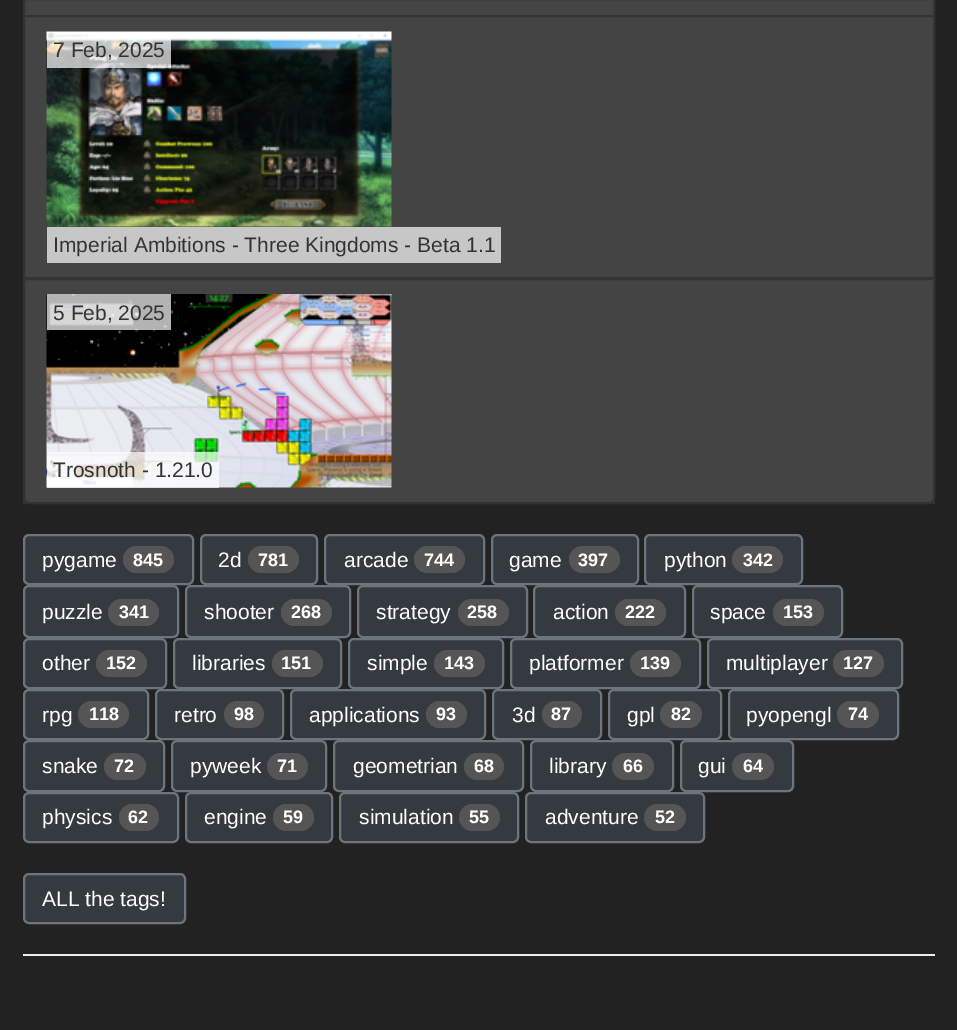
%!PS
<< /PageSize [957 1030] /PageUsesTransparency true >> setpagedevice
/mt/moveto load def
/li/lineto load def
/ct/curveto load def
/cp/closepath load def
/fl/fill load def
/st/stroke load def
/gs/gsave load def
/gr/grestore load def
/lw/setlinewidth load def
/co { dup -16 bitshift 255 div exch dup -8 bitshift 255 and 255 div exch 255 and 255 div setrgbcolor } def
/fn { [ exch dup neg 0 0 3 -1 roll 0 0 ] selectfont } def
/tx { co fn moveto show } def
/bx { co rectfill } def
/al { dup .setfillconstantalpha .setstrokeconstantalpha } def
/rr { 5 dict begin { /r /h /w /y /x } { exch def } forall
  x r add y moveto x w add y 2 copy h add r arct x w add y h add x 1 index r arct
  x y h add x y r arct x y 2 copy exch w add exch r arct closepath end } def
/im { 5 dict begin { /h /w /y /x /name } { exch def } forall
  gsave x y translate w h scale
  w h 8 [w 0 0 h 0 0] name (r) file false 3 colorimage grestore end } def
0 .pushpdf14devicefilter
0 1030 translate 1 -1 scale
4 setmiterlimit
0 0 957 1030 16#222222 bx
23 498 912 6 16#333333 bx
16#444444 co
24 -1 mt 934 -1 li 934 16 li 24 16 li cp gs fl gr
16#333333 co
2 lw
st
16#444444 co
24 16 mt 934 16 li 934 278 li 24 278 li cp gs fl gr
16#333333 co
st
(media/1.raw) 46 31 346 196 im
0.7 al
47 32 124 36 16#FFFFFF bx
1 al
47 227 454 36 16#C7C7C7 bx
16#444444 co
24 279 mt 934 279 li 934 498 li 934 501 932 503 929 503 ct 29 503 li 26 503 24 501 24 498 ct cp gs fl gr
16#333333 co
st
(media/2.raw) 46 294 346 194 im
0.7 al
47 294 124 36 16#FFFFFF bx
47 452 172 36 16#FFFFFF bx
1 al
16#343A40 co
24 535 169 49 5 rr gs fl gr
16#6C757D co
st
16#555555 co
123 546 51 27 13.5 rr fl
16#343A40 co
201 535 116 49 5 rr gs fl gr
16#6C757D co
st
16#555555 co
248 546 51 27 13.5 rr fl
16#343A40 co
325 535 159 49 5 rr gs fl gr
16#6C757D co
st
16#555555 co
414 546 51 27 13.5 rr fl
16#343A40 co
492 535 146 49 5 rr gs fl gr
16#6C757D co
st
16#555555 co
569 546 51 27 13.5 rr fl
16#343A40 co
645 535 157 49 5 rr gs fl gr
16#6C757D co
st
16#555555 co
732 546 51 27 13.5 rr fl
16#343A40 co
24 586 154 51 5 rr gs fl gr
16#6C757D co
st
16#555555 co
108 599 51 27 13.5 rr fl
16#343A40 co
186 586 164 51 5 rr gs fl gr
16#6C757D co
st
16#555555 co
281 599 51 27 13.5 rr fl
16#343A40 co
358 586 169 51 5 rr gs fl gr
16#6C757D co
st
16#555555 co
458 599 51 27 13.5 rr fl
16#343A40 co
534 586 151 51 5 rr gs fl gr
16#6C757D co
st
16#555555 co
615 599 51 27 13.5 rr fl
16#343A40 co
693 586 149 51 5 rr gs fl gr
16#6C757D co
st
16#555555 co
773 599 51 27 13.5 rr fl
16#343A40 co
24 639 142 49 5 rr gs fl gr
16#6C757D co
st
16#555555 co
96 650 51 27 13.5 rr fl
16#343A40 co
174 639 167 49 5 rr gs fl gr
16#6C757D co
st
16#555555 co
272 650 51 27 13.5 rr fl
16#343A40 co
349 639 154 49 5 rr gs fl gr
16#6C757D co
st
16#555555 co
434 650 51 27 13.5 rr fl
16#343A40 co
511 639 189 49 5 rr gs fl gr
16#6C757D co
st
16#555555 co
630 650 51 27 13.5 rr fl
16#343A40 co
708 639 194 49 5 rr gs fl gr
16#6C757D co
st
16#555555 co
833 650 51 27 13.5 rr fl
16#343A40 co
24 690 124 49 5 rr gs fl gr
16#6C757D co
st
16#555555 co
78 701 51 27 13.5 rr fl
16#343A40 co
156 690 127 49 5 rr gs fl gr
16#6C757D co
st
16#555555 co
224 701 40 27 13.5 rr fl
16#343A40 co
291 690 194 49 5 rr gs fl gr
16#6C757D co
st
16#555555 co
426 701 41 27 13.5 rr fl
16#343A40 co
493 690 108 49 5 rr gs fl gr
16#6C757D co
st
16#555555 co
542 701 40 27 13.5 rr fl
16#343A40 co
609 690 112 49 5 rr gs fl gr
16#6C757D co
st
16#555555 co
660 701 42 27 13.5 rr fl
16#343A40 co
729 690 169 49 5 rr gs fl gr
16#6C757D co
st
16#555555 co
837 701 42 27 13.5 rr fl
16#343A40 co
24 741 140 50 5 rr gs fl gr
16#6C757D co
st
16#555555 co
104 753 42 27 13.5 rr fl
16#343A40 co
172 741 154 50 5 rr gs fl gr
16#6C757D co
st
16#555555 co
267 753 41 27 13.5 rr fl
16#343A40 co
334 741 189 50 5 rr gs fl gr
16#6C757D co
st
16#555555 co
464 753 40 27 13.5 rr fl
16#343A40 co
531 741 142 50 5 rr gs fl gr
16#6C757D co
st
16#555555 co
612 753 42 27 13.5 rr fl
16#343A40 co
681 741 112 50 5 rr gs fl gr
16#6C757D co
st
16#555555 co
732 753 42 27 13.5 rr fl
16#343A40 co
24 793 154 49 5 rr gs fl gr
16#6C757D co
st
16#555555 co
119 804 40 27 13.5 rr fl
16#343A40 co
186 793 146 49 5 rr gs fl gr
16#6C757D co
st
16#555555 co
273 804 41 27 13.5 rr fl
16#343A40 co
340 793 178 49 5 rr gs fl gr
16#6C757D co
st
16#555555 co
459 804 41 27 13.5 rr fl
16#343A40 co
526 793 178 49 5 rr gs fl gr
16#6C757D co
st
16#555555 co
644 804 42 27 13.5 rr fl
16#343A40 co
24 874 161 49 5 rr gs fl gr
16#6C757D co
st
23 954 912 2 16#EEEEEE bx
(7 Feb, 2025) 53 57 /LiberationSans-Regular 21 16#333333 tx
(Imperial Ambitions - Three Kingdoms - Beta 1.1) 53 252 /LiberationSans-Regular 21 16#333333 tx
(5 Feb, 2025) 53 320 /LiberationSans-Regular 21 16#333333 tx
(Trosnoth - 1.21.0) 53 477 /LiberationSans-Regular 21 16#333333 tx
(pygame) 42 567 /LiberationSans-Regular 21 16#FFFFFF tx
(845) 133 566 /LiberationSans-Bold 18 16#FFFFFF tx
(2d) 218 567 /LiberationSans-Regular 21 16#FFFFFF tx
(781) 258 566 /LiberationSans-Bold 18 16#FFFFFF tx
(arcade) 344 567 /LiberationSans-Regular 21 16#FFFFFF tx
(744) 424 566 /LiberationSans-Bold 18 16#FFFFFF tx
(game) 509 567 /LiberationSans-Regular 21 16#FFFFFF tx
(397) 578 566 /LiberationSans-Bold 18 16#FFFFFF tx
(python) 664 567 /LiberationSans-Regular 21 16#FFFFFF tx
(342) 743 566 /LiberationSans-Bold 18 16#FFFFFF tx
(puzzle) 42 619 /LiberationSans-Regular 21 16#FFFFFF tx
(341) 119 618 /LiberationSans-Bold 18 16#FFFFFF tx
(shooter) 204 619 /LiberationSans-Regular 21 16#FFFFFF tx
(268) 291 618 /LiberationSans-Bold 18 16#FFFFFF tx
(strategy) 376 619 /LiberationSans-Regular 21 16#FFFFFF tx
(258) 467 618 /LiberationSans-Bold 18 16#FFFFFF tx
(action) 553 619 /LiberationSans-Regular 21 16#FFFFFF tx
(222) 625 618 /LiberationSans-Bold 18 16#FFFFFF tx
(space) 710 619 /LiberationSans-Regular 21 16#FFFFFF tx
(153) 783 618 /LiberationSans-Bold 18 16#FFFFFF tx
(other) 42 670 /LiberationSans-Regular 21 16#FFFFFF tx
(152) 106 669 /LiberationSans-Bold 18 16#FFFFFF tx
(libraries) 192 670 /LiberationSans-Regular 21 16#FFFFFF tx
(151) 281 669 /LiberationSans-Bold 18 16#FFFFFF tx
(simple) 367 670 /LiberationSans-Regular 21 16#FFFFFF tx
(143) 444 669 /LiberationSans-Bold 18 16#FFFFFF tx
(platformer) 529 670 /LiberationSans-Regular 21 16#FFFFFF tx
(139) 640 669 /LiberationSans-Bold 18 16#FFFFFF tx
(multiplayer) 726 670 /LiberationSans-Regular 21 16#FFFFFF tx
(127) 843 669 /LiberationSans-Bold 18 16#FFFFFF tx
(rpg) 42 722 /LiberationSans-Regular 21 16#FFFFFF tx
(118) 89 720 /LiberationSans-Bold 18 16#FFFFFF tx
(retro) 174 722 /LiberationSans-Regular 21 16#FFFFFF tx
(98) 234 720 /LiberationSans-Bold 18 16#FFFFFF tx
(applications) 309 722 /LiberationSans-Regular 21 16#FFFFFF tx
(93) 436 720 /LiberationSans-Bold 18 16#FFFFFF tx
(3d) 512 722 /LiberationSans-Regular 21 16#FFFFFF tx
(87) 551 720 /LiberationSans-Bold 18 16#FFFFFF tx
(gpl) 627 722 /LiberationSans-Regular 21 16#FFFFFF tx
(82) 671 720 /LiberationSans-Bold 18 16#FFFFFF tx
(pyopengl) 746 722 /LiberationSans-Regular 21 16#FFFFFF tx
(74) 848 720 /LiberationSans-Bold 18 16#FFFFFF tx
(snake) 42 773 /LiberationSans-Regular 21 16#FFFFFF tx
(72) 114 772 /LiberationSans-Bold 18 16#FFFFFF tx
(pyweek) 190 773 /LiberationSans-Regular 21 16#FFFFFF tx
(71) 277 772 /LiberationSans-Bold 18 16#FFFFFF tx
(geometrian) 353 773 /LiberationSans-Regular 21 16#FFFFFF tx
(68) 474 772 /LiberationSans-Bold 18 16#FFFFFF tx
(library) 549 773 /LiberationSans-Regular 21 16#FFFFFF tx
(66) 623 772 /LiberationSans-Bold 18 16#FFFFFF tx
(gui) 698 773 /LiberationSans-Regular 21 16#FFFFFF tx
(64) 743 772 /LiberationSans-Bold 18 16#FFFFFF tx
(physics) 42 824 /LiberationSans-Regular 21 16#FFFFFF tx
(62) 128 823 /LiberationSans-Bold 18 16#FFFFFF tx
(engine) 204 824 /LiberationSans-Regular 21 16#FFFFFF tx
(59) 283 823 /LiberationSans-Bold 18 16#FFFFFF tx
(simulation) 359 824 /LiberationSans-Regular 21 16#FFFFFF tx
(55) 469 823 /LiberationSans-Bold 18 16#FFFFFF tx
(adventure) 545 824 /LiberationSans-Regular 21 16#FFFFFF tx
(52) 655 823 /LiberationSans-Bold 18 16#FFFFFF tx
(ALL the tags!) 42 906 /LiberationSans-Regular 21 16#FFFFFF tx
.poppdf14devicefilter showpage
